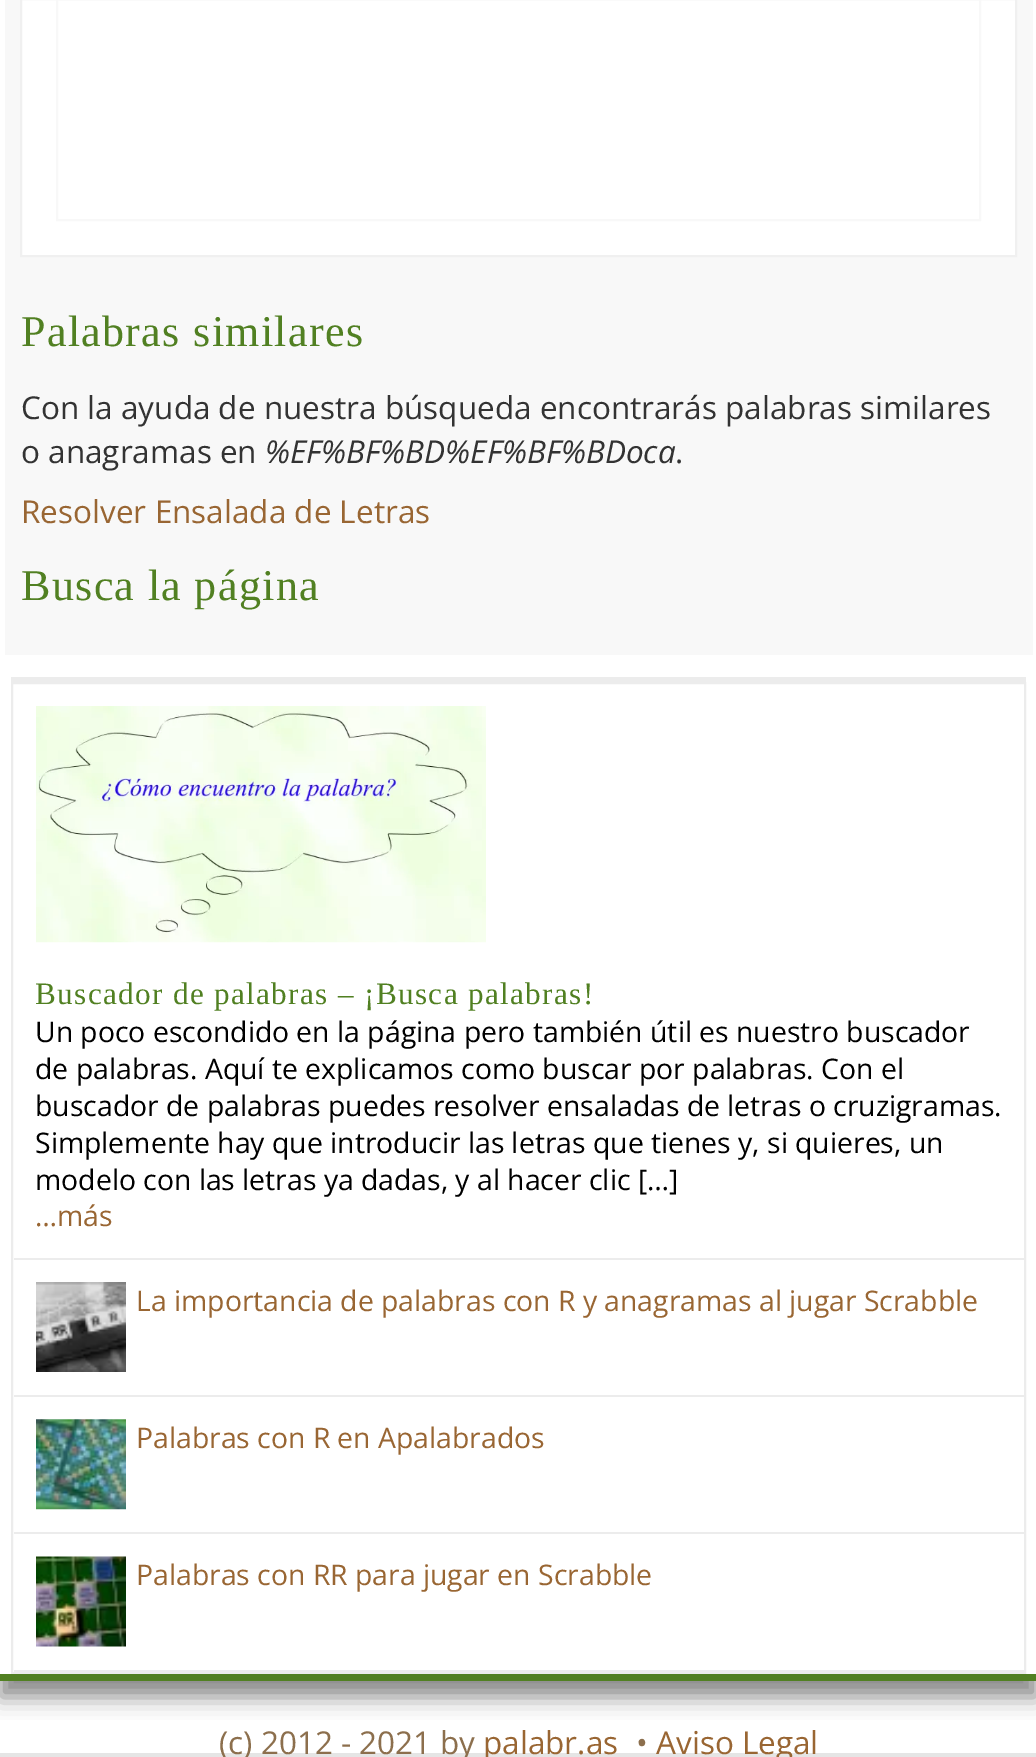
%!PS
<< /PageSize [1036 1757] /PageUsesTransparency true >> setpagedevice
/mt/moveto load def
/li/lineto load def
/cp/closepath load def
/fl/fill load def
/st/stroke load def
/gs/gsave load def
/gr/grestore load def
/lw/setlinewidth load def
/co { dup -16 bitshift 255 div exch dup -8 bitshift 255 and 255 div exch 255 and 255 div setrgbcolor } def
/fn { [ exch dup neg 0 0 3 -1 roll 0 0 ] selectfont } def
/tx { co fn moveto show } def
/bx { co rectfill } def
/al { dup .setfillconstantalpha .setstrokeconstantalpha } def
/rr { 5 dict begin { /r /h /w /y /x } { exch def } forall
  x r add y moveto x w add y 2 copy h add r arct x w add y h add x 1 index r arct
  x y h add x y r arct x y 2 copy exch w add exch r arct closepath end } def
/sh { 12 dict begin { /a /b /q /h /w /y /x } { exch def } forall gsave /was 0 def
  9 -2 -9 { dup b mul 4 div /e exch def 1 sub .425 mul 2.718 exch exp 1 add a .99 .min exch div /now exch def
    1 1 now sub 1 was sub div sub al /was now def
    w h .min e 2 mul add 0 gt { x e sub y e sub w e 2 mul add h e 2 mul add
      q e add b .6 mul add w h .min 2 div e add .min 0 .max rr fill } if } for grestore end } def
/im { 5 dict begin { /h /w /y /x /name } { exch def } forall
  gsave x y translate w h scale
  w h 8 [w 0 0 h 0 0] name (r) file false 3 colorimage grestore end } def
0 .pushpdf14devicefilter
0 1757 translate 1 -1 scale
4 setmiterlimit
0 0 1036 1757 16#FFFFFF bx
gs
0 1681 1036 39 rectclip
16#888888 co
0 -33 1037 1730 0 11 1 sh
gr
5 0 1028 655 16#F8F8F8 bx
16#FFFFFF co
21 -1 mt 1016 -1 li 1016 256 li 21 256 li cp gs fl gr
16#F0F0F0 co
2 lw
st
16#F8F8F8 co
57 -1 923 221 rectstroke
11 677 1015 5 16#ECECEC bx
12 683 1013 990 rectstroke
14 1258 1010 2 16#ECECEC bx
(media/1.raw) 36 706 450 237 im
14 1395 1010 2 16#ECECEC bx
(media/2.raw) 36 1282 90 90 im
14 1532 1010 2 16#ECECEC bx
(media/3.raw) 36 1419 90 91 im
14 1670 1010 2 16#ECECEC bx
(media/4.raw) 36 1556 90 91 im
0 1674 1036 7 16#518022 bx
0.1 al
0 1753 1036 4 16#000000 bx
/LiberationSerif-Regular 44 fn
1 al
16#518022 co
21 346 mt 1.35 0 (Palabras similares) ashow
(Con la ayuda de nuestra búsqueda encontrarás palabras similares) 21 419 /OpenSans-Regular 31.5 16#333333 tx
(o anagramas en) 21 463 /OpenSans-Regular 31.5 16#333333 tx
(%EF%BF%BD%EF%BF%BDoca) 265 463 /OpenSans-Italic 31.5 16#333333 tx
(.) 675 463 /OpenSans-Regular 31.5 16#333333 tx
(Resolver Ensalada de Letras) 21 523 /OpenSans-Regular 31.5 16#996633 tx
/LiberationSerif-Regular 44 fn
16#518022 co
21 600 mt 1.35 0 (Busca la página) ashow
/LiberationSerif-Regular 31.2 fn
35 1004 mt 1.35 0 (Buscador de palabras – ¡Busca palabras!) ashow
(Un poco escondido en la página pero también útil es nuestro buscador) 35 1042 /OpenSans-Regular 28.35 16#000000 tx
(de palabras. Aquí te explicamos como buscar por palabras. Con el) 35 1079 /OpenSans-Regular 28.35 16#000000 tx
(buscador de palabras puedes resolver ensaladas de letras o cruzigramas.) 35 1116 /OpenSans-Regular 28.35 16#000000 tx
(Simplemente hay que introducir las letras que tienes y, si quieres, un) 35 1153 /OpenSans-Regular 28.35 16#000000 tx
(modelo con las letras ya dadas, y al hacer clic […]) 35 1190 /OpenSans-Regular 28.35 16#000000 tx
(…más) 35 1226 /OpenSans-Regular 28.35 16#996633 tx
(La importancia de palabras con R y anagramas al jugar Scrabble) 136 1311 /OpenSans-Regular 28.35 16#996633 tx
(Palabras con R en Apalabrados) 136 1448 /OpenSans-Regular 28.35 16#996633 tx
(Palabras con RR para jugar en Scrabble) 136 1585 /OpenSans-Regular 28.35 16#996633 tx
(\(c\) 2012 - 2021 by) 219 1754 /OpenSans-Regular 31.5 16#8C6F4D tx
(palabr.as) 483 1754 /OpenSans-Regular 31.5 16#996633 tx
(•) 636 1754 /OpenSans-Regular 31.5 16#8C6F4D tx
(Aviso Legal) 656 1754 /OpenSans-Regular 31.5 16#996633 tx
.poppdf14devicefilter showpage
